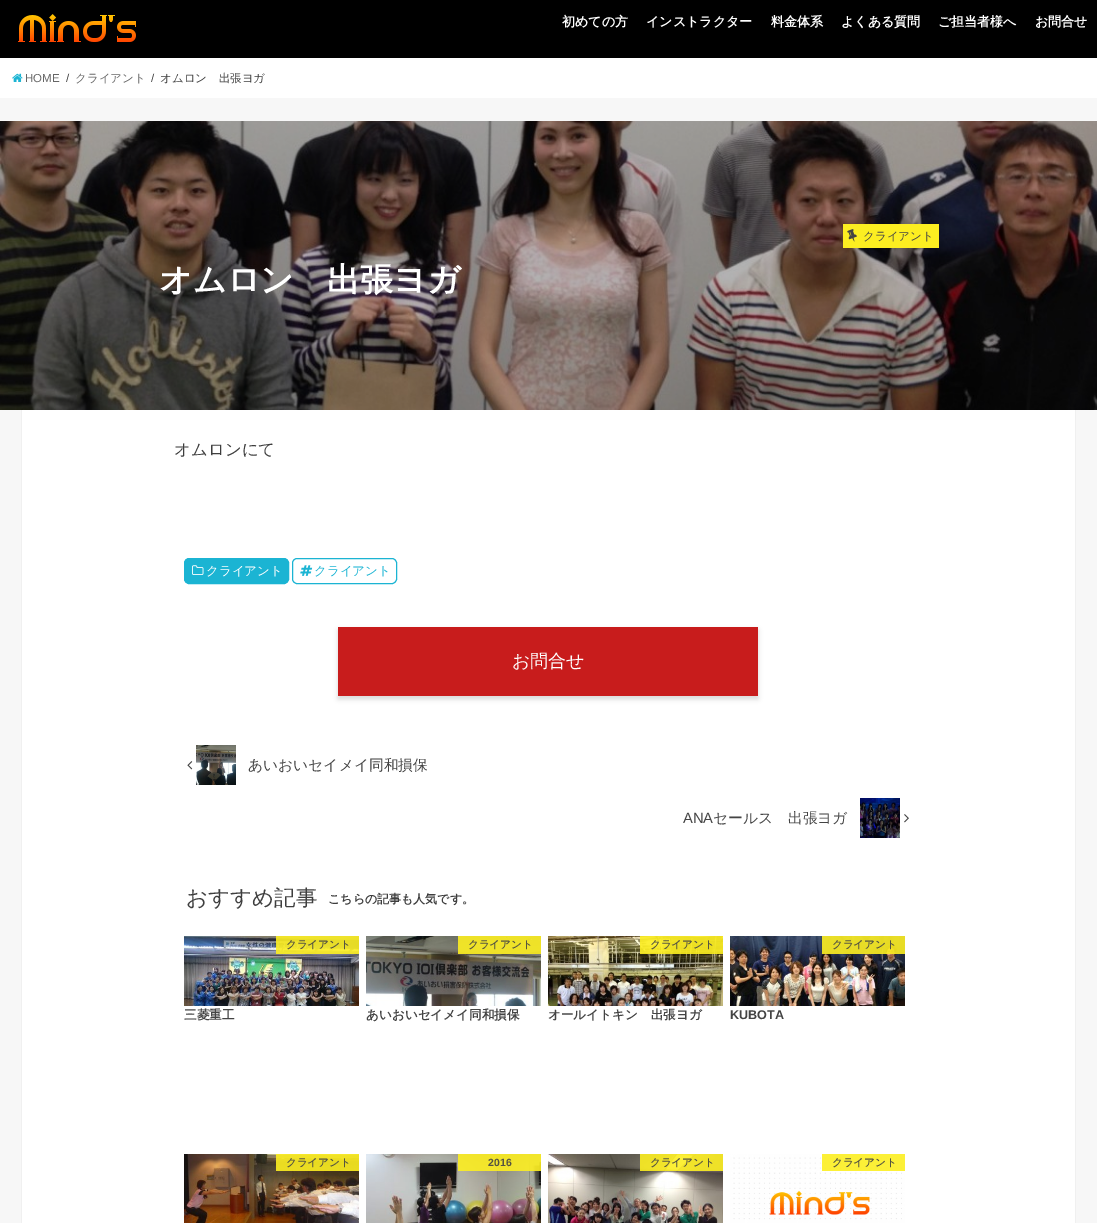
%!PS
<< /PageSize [1097 1223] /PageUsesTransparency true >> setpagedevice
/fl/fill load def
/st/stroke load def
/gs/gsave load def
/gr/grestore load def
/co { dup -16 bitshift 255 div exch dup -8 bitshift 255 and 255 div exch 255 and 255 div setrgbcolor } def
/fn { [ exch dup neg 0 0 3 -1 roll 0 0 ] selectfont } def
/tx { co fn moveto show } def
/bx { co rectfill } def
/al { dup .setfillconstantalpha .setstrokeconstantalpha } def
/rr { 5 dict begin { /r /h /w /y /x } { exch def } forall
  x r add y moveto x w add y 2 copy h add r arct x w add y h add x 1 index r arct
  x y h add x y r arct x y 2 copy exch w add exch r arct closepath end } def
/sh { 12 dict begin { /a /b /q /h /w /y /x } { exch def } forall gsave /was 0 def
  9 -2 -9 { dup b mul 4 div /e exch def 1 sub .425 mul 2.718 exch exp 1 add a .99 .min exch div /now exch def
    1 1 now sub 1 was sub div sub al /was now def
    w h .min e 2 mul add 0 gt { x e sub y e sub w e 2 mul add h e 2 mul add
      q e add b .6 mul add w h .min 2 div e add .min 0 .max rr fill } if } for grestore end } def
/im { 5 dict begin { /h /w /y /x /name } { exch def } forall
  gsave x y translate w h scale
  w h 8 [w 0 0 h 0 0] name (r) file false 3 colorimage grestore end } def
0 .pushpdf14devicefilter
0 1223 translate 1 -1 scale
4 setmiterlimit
0 0 1097 1223 16#F7F7F7 bx
0 0 1097 58 16#000000 bx
(media/1.raw) 18 14 118 28 im
0 58 1097 40 16#FFFFFF bx
(media/2.raw) 12 73 11 9 im
16#DDDDDD co
22 410 1053 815 0 .5 1 sh
(media/3.raw) 0 121 1097 289 im
843 224 96 24 16#FCEE21 bx
(media/4.raw) 847 229 10 13 im
22 410 1053 813 16#FFFFFF bx
16#1BB4D3 co
184.5 558.5 104 25 4.5 rr gs fl gr
st
(media/5.raw) 192 565 12 10 im
292.5 558.5 104 25 4.5 rr st
(media/6.raw) 300 565 13 11 im
16#000000 co
338 630 420 69 0 2.5 .15 sh
338 627 420 69 16#C81C1C bx
(media/7.raw) 187 761 6 9 im
(media/8.raw) 196 745 40 40 im
(media/9.raw) 860 798 40 40 im
(media/10.raw) 904 814 5 9 im
(media/11.raw) 184 936 175 70 im
0.9 al
276 936 83 18 16#FCEE21 bx
1 al
(media/12.raw) 366 936 175 70 im
0.9 al
458 936 83 18 16#FCEE21 bx
1 al
(media/13.raw) 548 936 175 70 im
0.9 al
640 936 83 18 16#FCEE21 bx
1 al
(media/14.raw) 730 936 175 70 im
0.9 al
822 936 83 18 16#FCEE21 bx
1 al
(media/15.raw) 184 1154 175 69 im
0.9 al
276 1154 83 17 16#FCEE21 bx
1 al
(media/16.raw) 366 1154 175 69 im
0.9 al
458 1154 83 17 16#FCEE21 bx
1 al
(media/17.raw) 548 1154 175 69 im
0.9 al
640 1154 83 17 16#FCEE21 bx
1 al
(media/18.raw) 730 1154 175 69 im
0.9 al
822 1154 83 17 16#FCEE21 bx
1 al
(初めての方) 562 26 /WenQuanYiZenHei-Bold 13 16#FFFFFF tx
(インストラクター) 646 26 /WenQuanYiZenHei-Bold 13 16#FFFFFF tx
(料金体系) 771 26 /WenQuanYiZenHei-Bold 13 16#FFFFFF tx
(よくある質問) 841 26 /WenQuanYiZenHei-Bold 13 16#FFFFFF tx
(ご担当者様へ) 938 26 /WenQuanYiZenHei-Bold 13 16#FFFFFF tx
(お問合せ) 1035 26 /WenQuanYiZenHei-Bold 13 16#FFFFFF tx
(HOME) 25 82 /LiberationSans-Regular 11.5 16#666666 tx
(/) 66 82 /LiberationSans-Regular 11.5 16#3E3E3E tx
(クライアント) 75 82 /WenQuanYiZenHei-Medium 11.5 16#666666 tx
(/) 151 82 /LiberationSans-Regular 11.5 16#3E3E3E tx
(オムロン　出張ヨガ) 160 82 /WenQuanYiZenHei-Medium 11.5 16#3E3E3E tx
(クライアント) 863 240 /WenQuanYiZenHei-Medium 11.5 16#444444 tx
(オムロン　出張ヨガ) 159 291 /WenQuanYiZenHei-Bold 33 16#FFFFFF tx
(オムロンにて) 174 455 /WenQuanYiZenHei-Medium 16.5 16#3E3E3E tx
(クライアント) 206 575 /WenQuanYiZenHei-Medium 12.5 16#FFFFFF tx
(クライアント) 314 575 /WenQuanYiZenHei-Medium 12.5 16#1BB4D3 tx
(お問合せ) 512 667 /WenQuanYiZenHei-Medium 18 16#FFFFFF tx
(あいおいセイメイ同和損保) 248 770 /WenQuanYiZenHei-Medium 14.75 16#444444 tx
(ANA) 683 823 /LiberationSans-Regular 14.75 16#444444 tx
(セールス　出張ヨガ) 713 823 /WenQuanYiZenHei-Medium 14.75 16#444444 tx
(おすすめ記事) 186 905 /WenQuanYiZenHei-Medium 21.5 16#3E3E3E tx
(こちらの記事も人気です。) 328 903 /WenQuanYiZenHei-Bold 12 16#3E3E3E tx
(クライアント) 286 948 /WenQuanYiZenHei-Bold 10.5 16#555442 tx
(三菱重工) 184 1019 /WenQuanYiZenHei-Bold 12.6 16#444444 tx
(クライアント) 468 948 /WenQuanYiZenHei-Bold 10.5 16#555442 tx
(あいおいセイメイ同和損保) 366 1019 /WenQuanYiZenHei-Bold 12.6 16#444444 tx
(クライアント) 650 948 /WenQuanYiZenHei-Bold 10.5 16#555442 tx
(オールイトキン　出張ヨガ) 548 1019 /WenQuanYiZenHei-Bold 12.6 16#444444 tx
(クライアント) 832 948 /WenQuanYiZenHei-Bold 10.5 16#555442 tx
(KUBOTA) 730 1019 /LiberationSans-Bold 12.6 16#444444 tx
(クライアント) 286 1166 /WenQuanYiZenHei-Bold 10.5 16#555442 tx
(2016) 488 1166 /LiberationSans-Bold 10.5 16#555442 tx
(クライアント) 650 1166 /WenQuanYiZenHei-Bold 10.5 16#555442 tx
(クライアント) 832 1166 /WenQuanYiZenHei-Bold 10.5 16#555442 tx
.poppdf14devicefilter showpage
